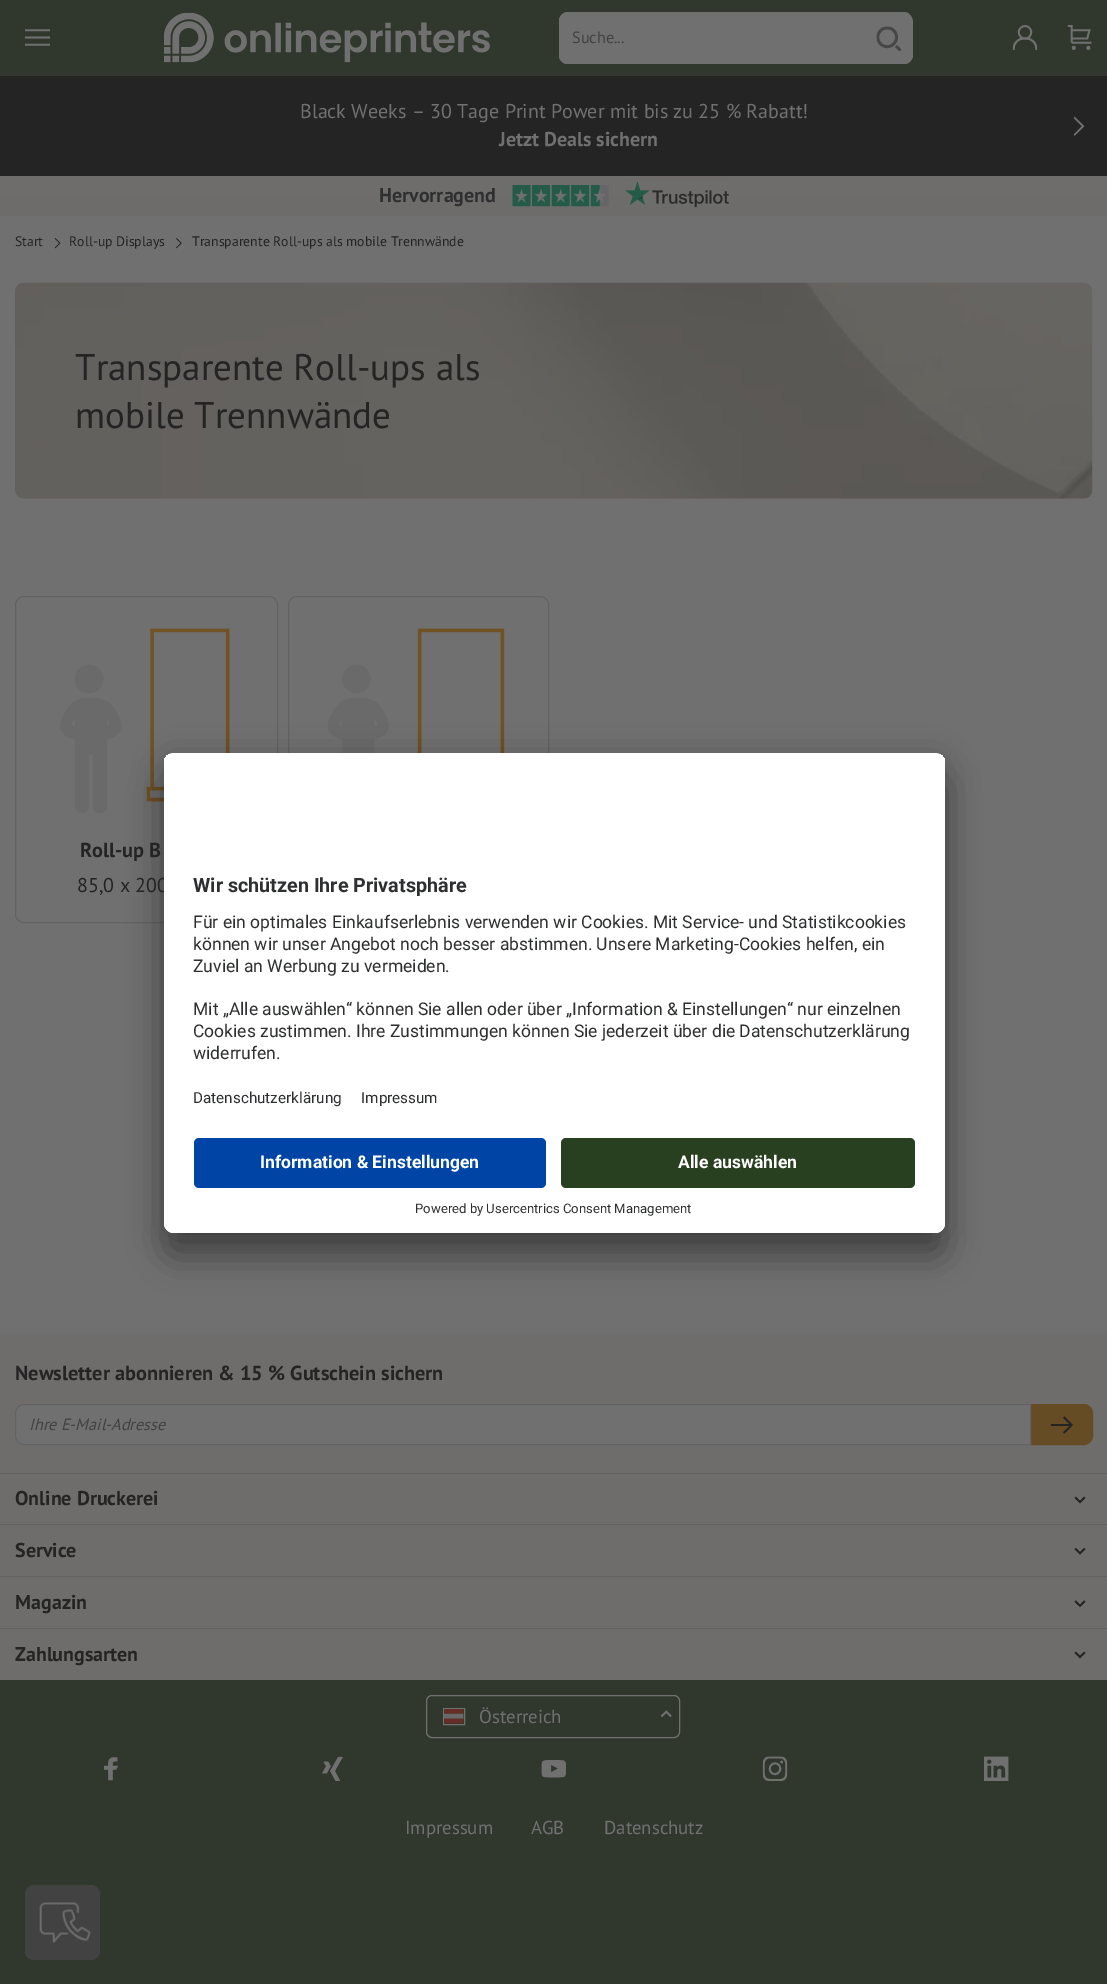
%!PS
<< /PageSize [1107 1984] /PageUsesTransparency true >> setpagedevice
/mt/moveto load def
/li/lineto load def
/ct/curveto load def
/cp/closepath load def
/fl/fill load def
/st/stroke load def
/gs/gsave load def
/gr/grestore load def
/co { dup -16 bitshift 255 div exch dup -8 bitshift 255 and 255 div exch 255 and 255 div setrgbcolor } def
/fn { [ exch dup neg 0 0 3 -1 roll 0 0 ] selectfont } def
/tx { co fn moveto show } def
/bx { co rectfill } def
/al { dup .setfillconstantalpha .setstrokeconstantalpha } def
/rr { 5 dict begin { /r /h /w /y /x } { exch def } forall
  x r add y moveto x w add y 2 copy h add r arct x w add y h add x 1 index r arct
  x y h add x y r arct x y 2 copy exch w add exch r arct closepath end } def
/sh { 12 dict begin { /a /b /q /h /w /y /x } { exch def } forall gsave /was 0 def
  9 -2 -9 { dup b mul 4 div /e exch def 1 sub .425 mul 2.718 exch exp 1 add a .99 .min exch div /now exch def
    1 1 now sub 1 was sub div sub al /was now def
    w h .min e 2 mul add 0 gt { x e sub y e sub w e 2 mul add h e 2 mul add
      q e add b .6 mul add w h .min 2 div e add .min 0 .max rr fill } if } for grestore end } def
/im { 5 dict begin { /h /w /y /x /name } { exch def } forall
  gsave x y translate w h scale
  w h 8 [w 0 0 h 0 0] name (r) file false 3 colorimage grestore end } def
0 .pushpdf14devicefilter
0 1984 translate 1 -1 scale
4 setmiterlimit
0 0 1107 1984 16#707070 bx
0 0 1107 76 16#30372D bx
(media/1.raw) 25 29 25 17 im
(media/2.raw) 164 12 326 51 im
16#707070 co
568 13 mt 866 13 li 866 64 li 568 64 li 563 64 559 60 559 55 ct 559 22 li 559 17 563 13 568 13 ct cp fl
568 12 mt 866 12 li 866 64 li 568 64 li 563 64 559 60 559 55 ct 559 21 li 559 16 563 12 568 12 ct cp 568 14 mt 866 14 li 866 62 li 568 62 li 563 62 560 59 560 55 ct 560 21 li 560 17 563 14 568 14 ct cp eofill
866 13 mt 904 13 li 909 13 913 17 913 22 ct 913 55 li 913 60 909 64 904 64 ct 866 64 li cp fl
866 12 mt 904 12 li 909 12 912 16 912 21 ct 912 55 li 912 60 909 64 904 64 ct 866 64 li cp 866 14 mt 904 14 li 908 14 911 17 911 21 ct 911 55 li 911 59 908 62 904 62 ct 866 62 li cp eofill
(media/3.raw) 876 26 25 25 im
(media/4.raw) 1012 25 26 25 im
(media/5.raw) 1067 25 25 25 im
0 76 1107 100 16#242424 bx
(media/6.raw) 1073 116 11 20 im
gs 0 176 mt 1107 176 li 1107 216 li 0 216 li cp clip newpath
<< /ShadingType 2 /ColorSpace /DeviceRGB /Coords [554 216 554 176] /Extend [true true] /Function << /FunctionType 2 /Domain [0 1] /C0 [.427 .424 .416] /C1 [.435 .431 .427] /N 1 >> >> shfill gr
(media/7.raw) 512 185 97 22 im
(media/8.raw) 625 181 104 27 im
(media/9.raw) 54 238 7 11 im
(media/10.raw) 176 238 6 11 im
(media/11.raw) 15 282 1078 217 im
16#626262 co
15.5 596.5 262 326 8.5 rr st
(media/12.raw) 60 628 170 186 im
288.5 596.5 260 326 8.5 rr st
(media/13.raw) 328 628 177 125 im
16#000000 co
164 778 781 480 10 17.5 .3 sh
164 759 781 480 10 16 .22 sh
0 1334 1107 346 16#6E6D6C bx
16#664C24 co
1030.5 1404.5 mt 1084 1404.5 li 1088.5 1404.5 1092.5 1408.5 1092.5 1413 ct 1092.5 1436 li 1092.5 1440.5 1088.5 1444.5 1084 1444.5 ct 1030.5 1444.5 li cp gs fl gr
st
16#707070 co
24 1404.5 mt 1030.5 1404.5 li 1030.5 1444.5 li 24 1444.5 li 19.5 1444.5 15.5 1440.5 15.5 1436 ct 15.5 1413 li 15.5 1408.5 19.5 1404.5 24 1404.5 ct cp gs fl gr
16#626365 co
st
(media/14.raw) 1050 1416 23 18 im
0 1473 1107 1 16#626262 bx
(media/15.raw) 1074 1496 12 8 im
0 1524 1107 1 16#626262 bx
(media/16.raw) 1074 1547 12 8 im
0 1576 1107 1 16#626262 bx
(media/17.raw) 1074 1600 12 8 im
0 1628 1107 1 16#626262 bx
(media/15.raw) 1074 1651 12 8 im
0 1680 1107 304 16#30372D bx
16#707070 co
426.5 1695.5 253 42 5.5 rr st
443.5 1708.5 21 16 rectstroke
(media/18.raw) 444 1709 20 15 im
(media/19.raw) 660 1710 12 8 im
(media/20.raw) 103 1757 16 24 im
(media/21.raw) 322 1756 21 25 im
(media/22.raw) 541 1760 25 18 im
(media/23.raw) 762 1756 26 25 im
(media/24.raw) 984 1756 25 25 im
16#424242 co
25 1885 75 75 9 rr fl
(media/25.raw) 39 1902 52 41 im
(Suche...) 572 43 /PTSans-Regular 16.25 16#424242 tx
(Black Weeks – 30 Tage Print Power mit bis zu 25 % Rabatt!) 300 118 /PTSans-Regular 20 16#707070 tx
(Jetzt Deals sichern) 499 146 /PTSans-Bold 20 16#707070 tx
(Hervorragend) 379 202 /PTSans-Bold 20 16#2E2F30 tx
(Start) 15 246 /PTSans-Regular 13.75 16#242424 tx
(Roll-up Displays) 69 246 /PTSans-Regular 13.75 16#242424 tx
(Transparente Roll-ups als mobile Trennwände) 192 246 /PTSans-Regular 13.75 16#242424 tx
(Transparente Roll-ups als) 75 380 /PTSans-Regular 37 16#242424 tx
(mobile Trennwände) 75 428 /PTSans-Regular 37 16#242424 tx
(Roll-up B) 80 857 /PTSans-Bold 20.3 16#242424 tx
(85,0 x 200) 77 892 /PTSans-Regular 20 16#242424 tx
16#FFFFFF co
164 753 781 480 10 rr fl
gs
164 753 781 480 10 rr clip newpath
174 753 mt 935 753 li 940.5 753 945 757.5 945 763 ct 945 1128 li 164 1128 li 164 763 li 164 757.5 168.5 753 174 753 ct cp clip newpath
164 754 781 374 16#FFFFFF bx
gr
(Wir schützen Ihre Privatsphäre) 193 892 /Roboto-Bold 19.75 16#2E2F30 tx
(Für ein optimales Einkaufserlebnis verwenden wir Cookies. Mit Service- und Statistikcookies) 193 928 /Roboto-Regular 17.5 16#2E2F30 tx
(können wir unser Angebot noch besser abstimmen. Unsere Marketing-Cookies helfen, ein) 193 950 /Roboto-Regular 17.5 16#2E2F30 tx
(Zuviel an Werbung zu vermeiden.) 193 972 /Roboto-Regular 17.5 16#2E2F30 tx
(Mit „Alle auswählen“ können Sie allen oder über „Information & Einstellungen“ nur einzelnen) 193 1015 /Roboto-Regular 17.5 16#2E2F30 tx
(Cookies zustimmen. Ihre Zustimmungen können Sie jederzeit über die Datenschutzerklärung) 193 1037 /Roboto-Regular 17.5 16#2E2F30 tx
(widerrufen.) 193 1059 /Roboto-Regular 17.5 16#2E2F30 tx
(Datenschutzerklärung) 193 1103 /Roboto-Regular 15.25 16#2E2F30 tx
(Impressum) 361 1103 /Roboto-Regular 15.25 16#2E2F30 tx
16#FFFFFF co
164 1128 mt 945 1128 li 945 1223 li 945 1228.5 940.5 1233 935 1233 ct 174 1233 li 168.5 1233 164 1228.5 164 1223 ct cp fl
16#0045A5 co
194 1138 352 50 5 rr fl
(Information & Einstellungen) 260 1168 /Roboto-Bold 17.5 16#FFFFFF tx
16#284020 co
561 1138 354 50 5 rr fl
(Alle auswählen) 678 1168 /Roboto-Bold 17.5 16#FFFFFF tx
(Powered by Usercentrics Consent Management) 415 1213 /Roboto-Regular 13.1 16#2E2F30 tx
(Newsletter abonnieren & 15 % Gutschein sichern) 15 1380 /PTSans-Bold 20.3 16#242424 tx
(Ihre E-Mail-Adresse) 29 1430 /PTSans-Italic 16.25 16#424242 tx
(Online Druckerei) 15 1505 /PTSans-Bold 20 16#242424 tx
(Service) 15 1557 /PTSans-Bold 20 16#242424 tx
(Magazin) 15 1609 /PTSans-Bold 20 16#242424 tx
(Zahlungsarten) 15 1661 /PTSans-Bold 20 16#242424 tx
(Österreich) 479 1723 /PTSans-Regular 18.75 16#707070 tx
(Impressum) 405 1834 /PTSans-Regular 18.75 16#707070 tx
(AGB) 531 1834 /PTSans-Regular 18.75 16#707070 tx
(Datenschutz) 604 1834 /PTSans-Regular 18.75 16#707070 tx
.poppdf14devicefilter showpage
